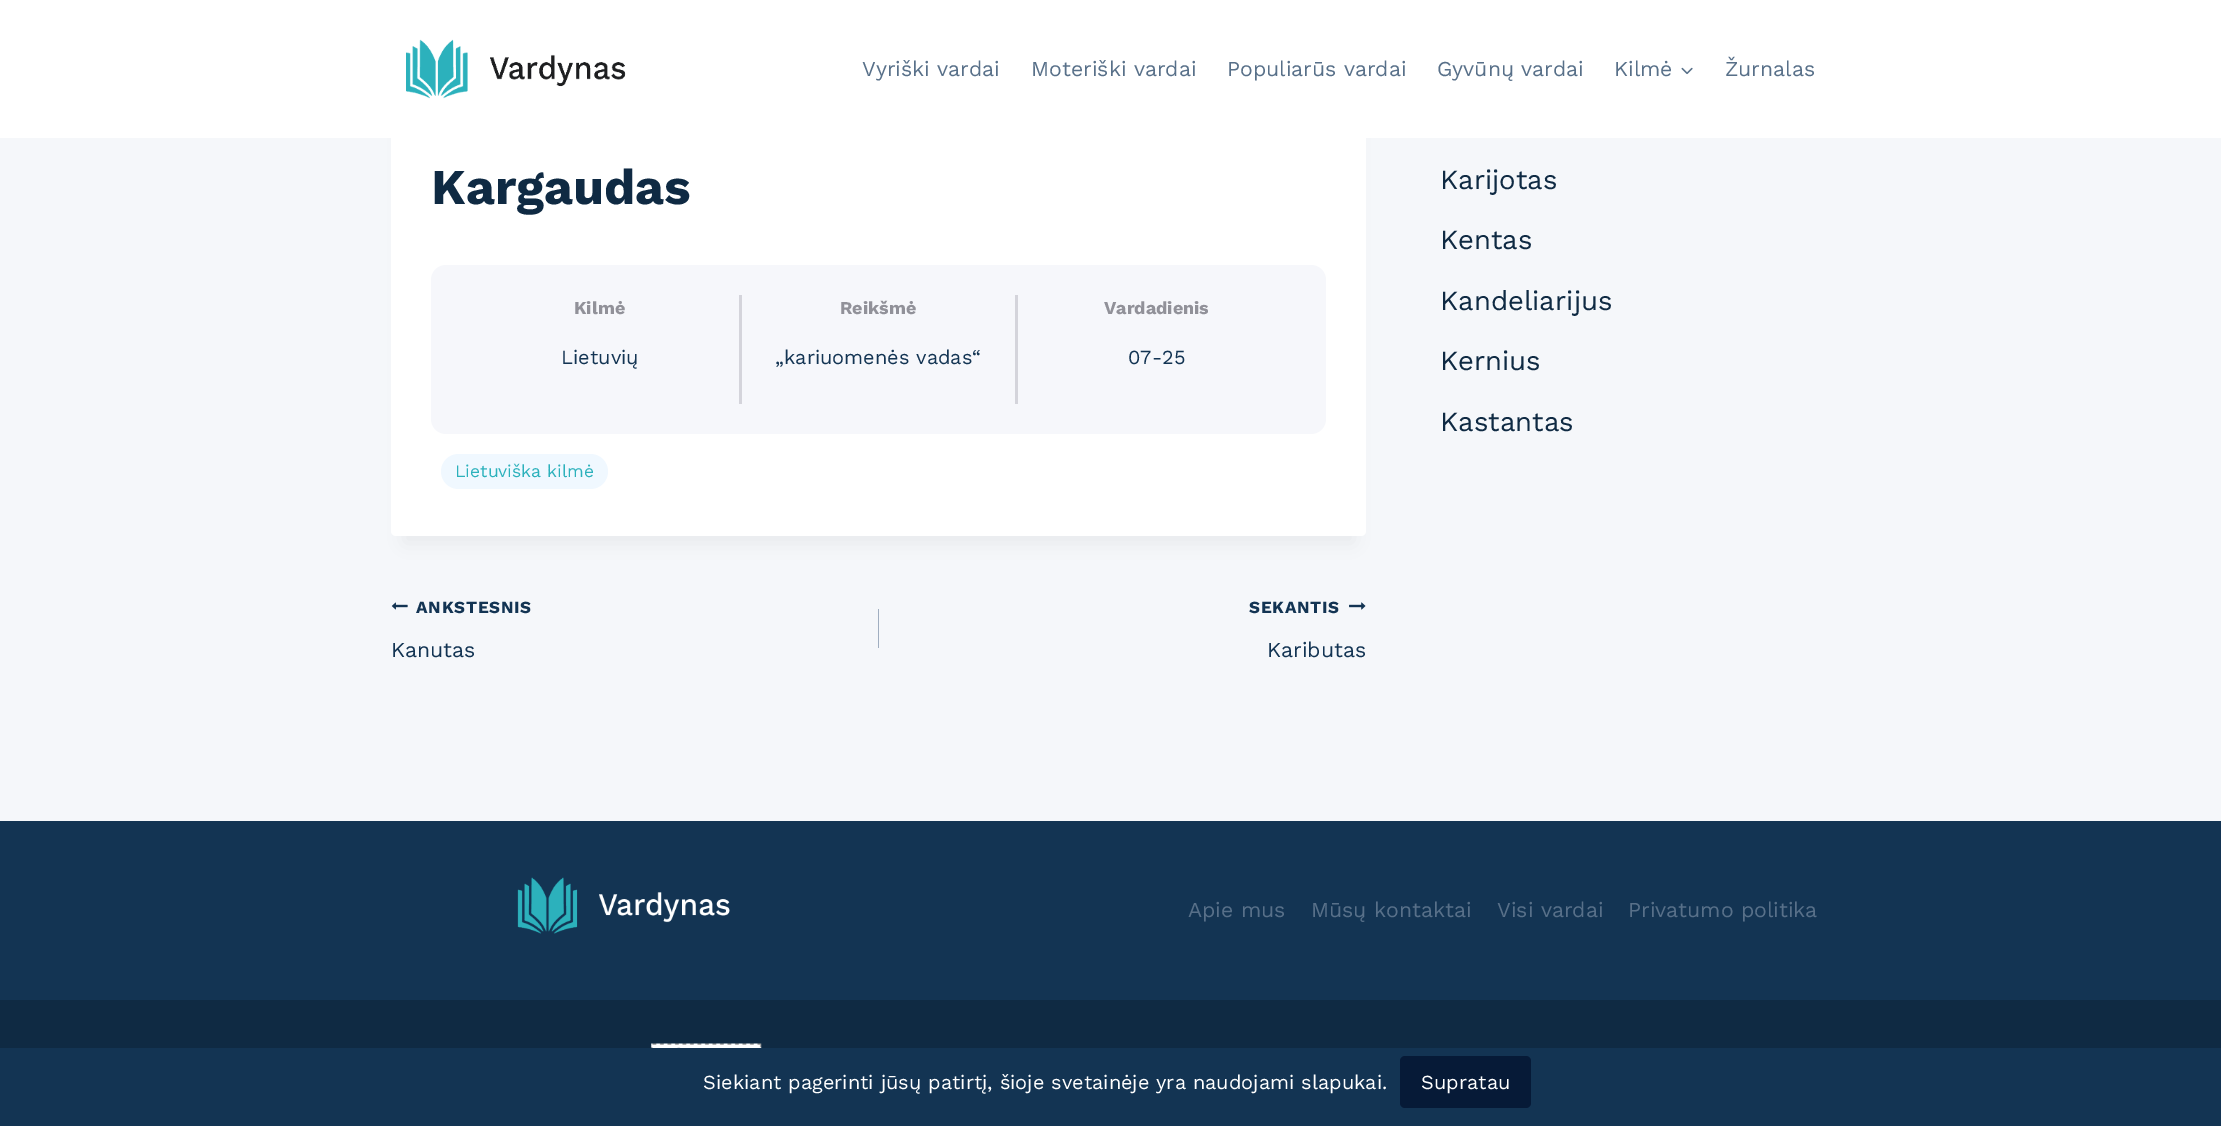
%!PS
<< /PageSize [2221 1126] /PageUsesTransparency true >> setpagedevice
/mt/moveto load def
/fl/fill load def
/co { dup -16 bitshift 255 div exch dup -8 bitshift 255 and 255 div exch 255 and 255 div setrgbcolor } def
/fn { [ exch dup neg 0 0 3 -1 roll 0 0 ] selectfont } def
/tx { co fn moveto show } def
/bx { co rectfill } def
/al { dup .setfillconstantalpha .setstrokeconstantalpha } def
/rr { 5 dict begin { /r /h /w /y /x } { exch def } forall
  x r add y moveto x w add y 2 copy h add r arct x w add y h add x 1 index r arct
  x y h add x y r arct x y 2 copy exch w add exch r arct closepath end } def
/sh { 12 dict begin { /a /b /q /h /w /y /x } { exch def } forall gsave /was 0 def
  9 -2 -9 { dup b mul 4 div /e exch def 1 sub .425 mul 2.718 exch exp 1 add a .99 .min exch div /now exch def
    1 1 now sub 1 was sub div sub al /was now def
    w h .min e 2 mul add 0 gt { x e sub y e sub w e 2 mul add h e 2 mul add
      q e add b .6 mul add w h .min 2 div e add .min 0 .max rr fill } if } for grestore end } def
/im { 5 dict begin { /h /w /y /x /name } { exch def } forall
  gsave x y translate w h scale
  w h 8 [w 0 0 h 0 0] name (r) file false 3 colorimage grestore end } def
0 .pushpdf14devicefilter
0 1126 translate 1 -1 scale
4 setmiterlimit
0 0 2221 1126 16#F5F7FA bx
16#000000 co
404 -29 950 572 0 9.5 .05 sh
16#FFFFFF co
391 -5 975 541 5 rr fl
0 0 2221 138 16#FFFFFF bx
(media/1.raw) 406 39 220 60 im
(media/2.raw) 1681 67 12 8 im
16#F6F7FB co
431 265 895 169 15 rr fl
1015 295 3 109 16#D4D4DB bx
739 295 3 109 16#D4D4DB bx
16#F0F8FF co
441 454 167 35 17.5 rr fl
(media/3.raw) 391 602 17 8 im
878 609 1 39 16#A0AEC0 bx
(media/4.raw) 1349 602 17 8 im
0 821 2221 179 16#133453 bx
(media/5.raw) 517 877 213 57 im
0 1000 2221 48 16#0F2A43 bx
(media/6.raw) 651 1043 111 5 im
0 1048 2221 78 16#133453 bx
16#061A37 co
1400 1056 131 52 5 rr fl
(Vyriški vardai) 862 76 /WorkSans-Regular 21.25 16#587089 tx
(Moteriški vardai) 1031 76 /WorkSans-Regular 21.25 16#587089 tx
(Populiarūs vardai) 1227 76 /WorkSans-Regular 21.25 16#587089 tx
(Gyvūnų vardai) 1437 76 /WorkSans-Regular 21.25 16#587089 tx
(Kilmė) 1614 76 /WorkSans-Regular 21.25 16#587089 tx
(Žurnalas) 1725 76 /WorkSans-Regular 21.25 16#587089 tx
(Kargaudas) 431 204 /WorkSans-Bold 50 16#0F2A43 tx
(Kilmė) 574 314 /WorkSans-Bold 18 16#919199 tx
(Lietuvių) 561 364 /WorkSans-Regular 20 16#133453 tx
(Reikšmė) 840 314 /WorkSans-Bold 18 16#919199 tx
(„kariuomenės vadas“) 775 364 /WorkSans-Regular 20 16#133453 tx
(Vardadienis) 1104 314 /WorkSans-Bold 18 16#919199 tx
(07-25) 1128 364 /WorkSans-Regular 20 16#133453 tx
(Lietuviška kilmė) 455 477 /WorkSans-Regular 17.5 16#2CB1BC tx
/WorkSans-Bold 17 fn
16#133453 co
416 613 mt .75 0 (ANKSTESNIS) ashow
(Kanutas) 391 657 /WorkSans-Regular 21.25 16#133453 tx
/WorkSans-Bold 17 fn
1249 613 mt .75 0 (SEKANTIS) ashow
(Kaributas) 1267 657 /WorkSans-Regular 21.25 16#133453 tx
(Karijotas) 1440 189 /WorkSans-Regular 27.5 16#0F2A43 tx
(Kentas) 1440 249 /WorkSans-Regular 27.5 16#0F2A43 tx
(Kandeliarijus) 1440 310 /WorkSans-Regular 27.5 16#0F2A43 tx
(Kernius) 1440 370 /WorkSans-Regular 27.5 16#0F2A43 tx
(Kastantas) 1440 431 /WorkSans-Regular 27.5 16#0F2A43 tx
(Apie mus) 1188 917 /WorkSans-Regular 21.25 16#587089 tx
(Mūsų kontaktai) 1311 917 /WorkSans-Regular 21.25 16#587089 tx
(Visi vardai) 1497 917 /WorkSans-Regular 21.25 16#587089 tx
(Privatumo politika) 1628 917 /WorkSans-Regular 21.25 16#587089 tx
(Siekiant pagerinti jūsų patirtį, šioje svetainėje yra naudojami slapukai.) 703 1089 /WorkSans-Regular 20 16#FFFFFF tx
(Supratau) 1421 1089 /WorkSans-Regular 20 16#FFFFFF tx
.poppdf14devicefilter showpage
